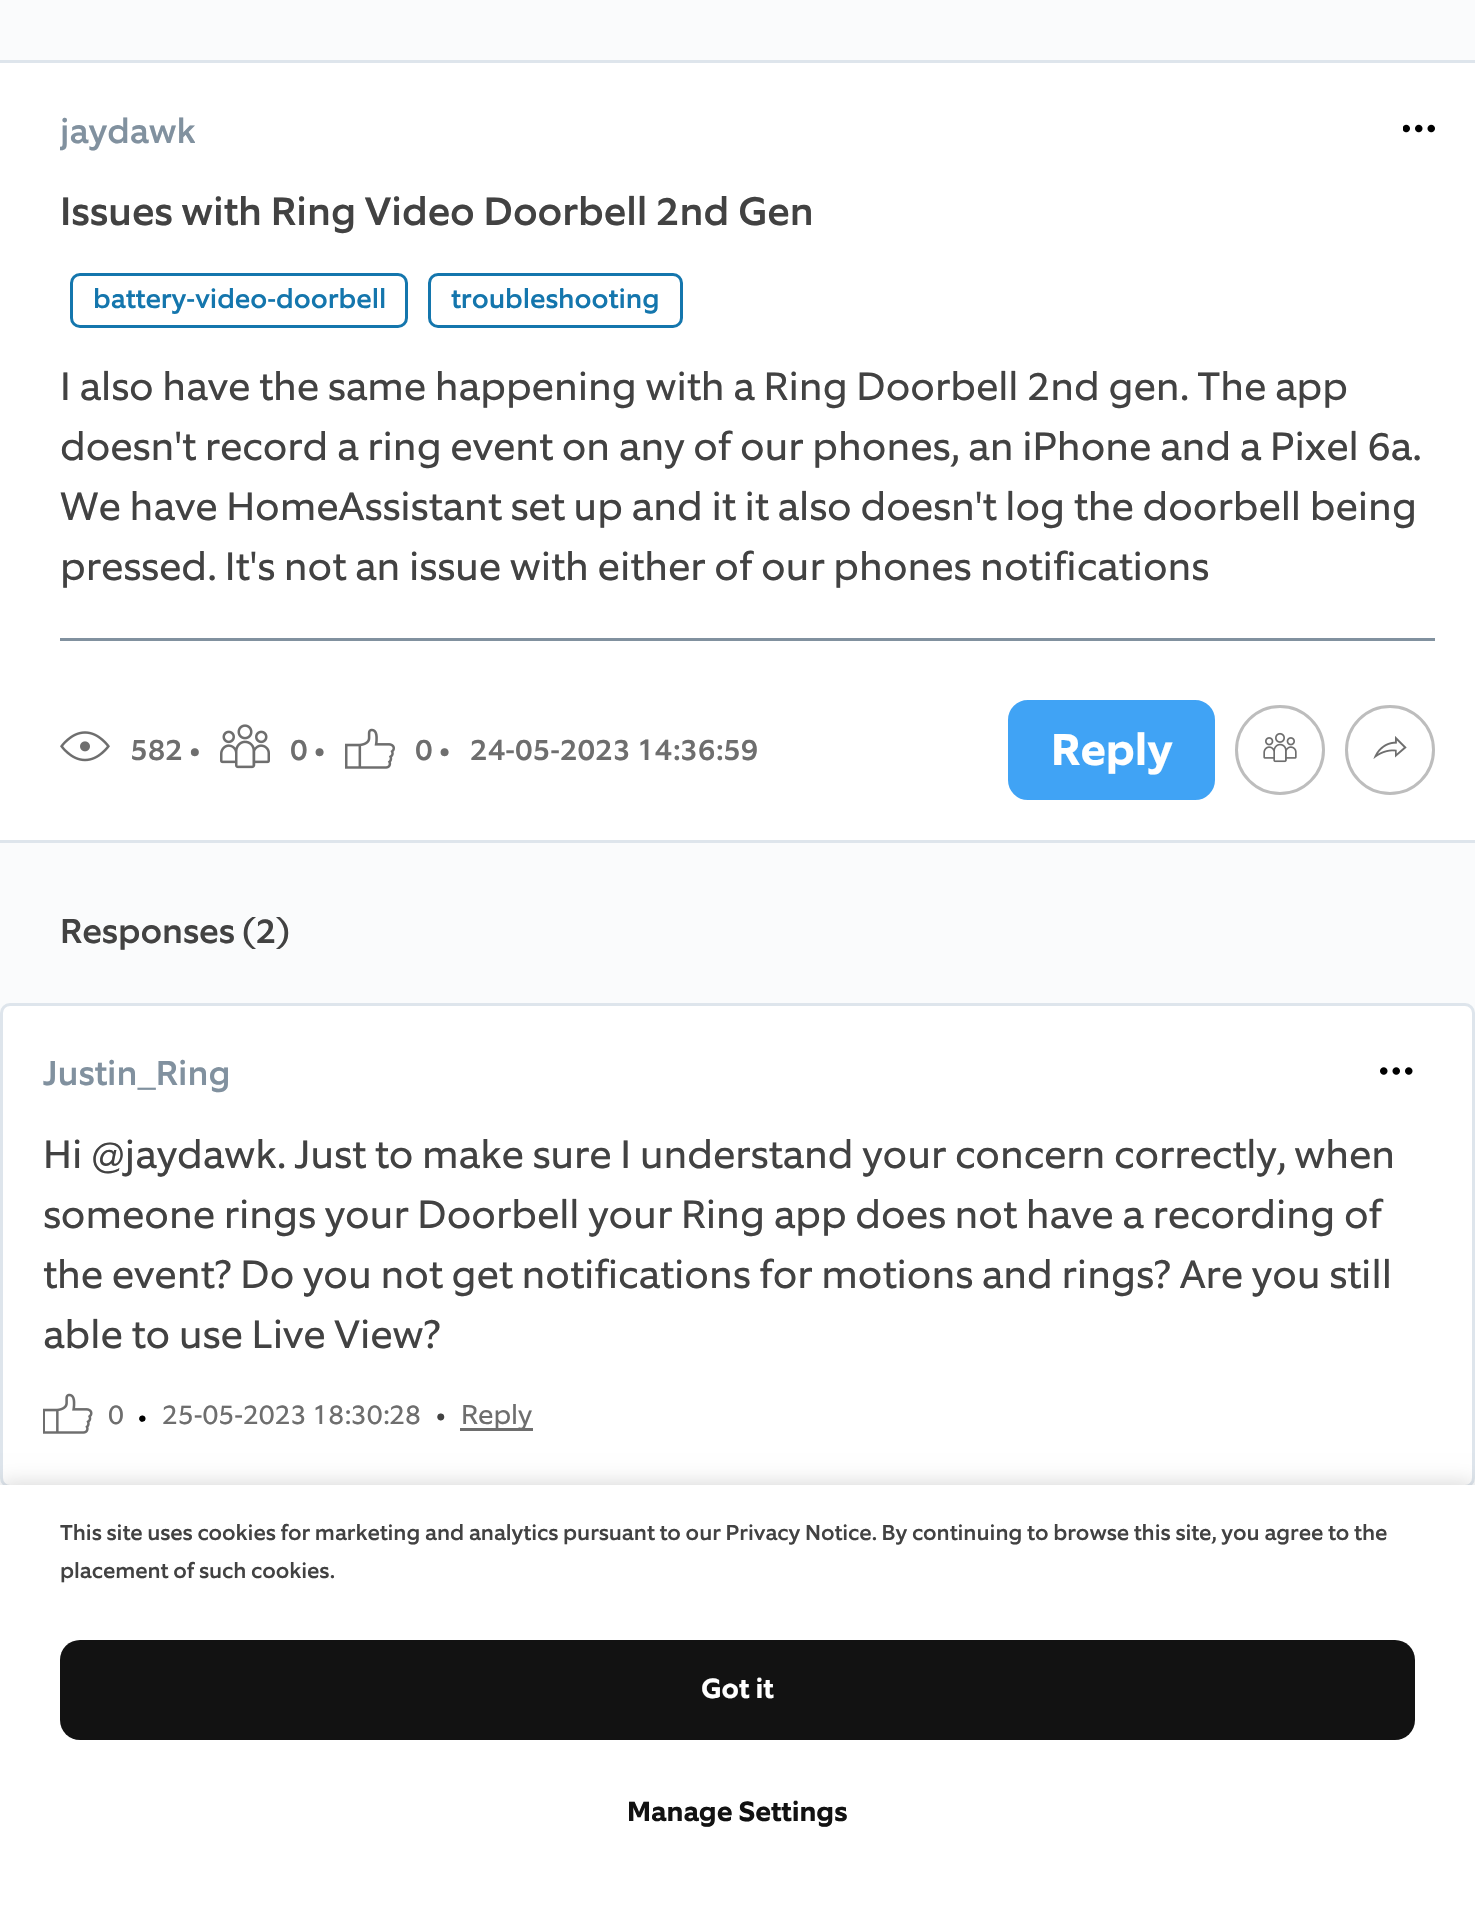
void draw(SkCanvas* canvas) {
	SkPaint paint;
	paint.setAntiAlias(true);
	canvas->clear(0xfffafbfc);
	paint.setColor(0xffffffff);
	canvas->drawRect(SkRect::MakeXYWH(0, 63, 1475, 777), paint);
	paint.setColor(0xffdee5ec);
	canvas->drawRect(SkRect::MakeXYWH(0, 60, 1475, 3), paint);
	canvas->drawRect(SkRect::MakeXYWH(0, 840, 1475, 3), paint);
	canvas->save();
	canvas->clipRect(SkRect::MakeXYWH(60, 103, 135, 60));
	SkFont f1(fontMgr->matchFamilyStyle("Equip", SkFontStyle(500, SkFontStyle::kNormal_Width, SkFontStyle::kUpright_Slant)), 35);
	f1.setSubpixel(true);
	paint.setColor(0xff81919f);
	canvas->drawString("jaydawk", 60, 143, f1, paint);
	canvas->restore();
	canvas->drawImageRect(SkImages::DeferredFromEncodedData(SkData::MakeFromFileName("img1.png")), SkRect::MakeXYWH(1403, 124, 32, 9), SkSamplingOptions());
	SkFont f2(fontMgr->matchFamilyStyle("Equip", SkFontStyle(500, SkFontStyle::kNormal_Width, SkFontStyle::kUpright_Slant)), 40);
	f2.setSubpixel(true);
	paint.setColor(0xff424242);
	canvas->drawString("Issues with Ring Video Doorbell 2nd Gen", 60, 225, f2, paint);
	paint.setStroke(true);
	paint.setStrokeWidth(3);
	paint.setColor(0xff1476ad);
	canvas->drawRoundRect(SkRect::MakeXYWH(71.5, 274.5, 335, 52), 8.5, 8.5, paint);
	SkFont f3(fontMgr->matchFamilyStyle("Equip", SkFontStyle(500, SkFontStyle::kNormal_Width, SkFontStyle::kUpright_Slant)), 27.5);
	f3.setSubpixel(true);
	paint.setStroke(false);
	canvas->drawString("battery-video-doorbell", 93, 308, f3, paint);
	paint.setStroke(true);
	canvas->drawRoundRect(SkRect::MakeXYWH(429.5, 274.5, 252, 52), 8.5, 8.5, paint);
	paint.setStroke(false);
	canvas->drawString("troubleshooting", 451, 308, f3, paint);
	SkFont f4(fontMgr->matchFamilyStyle("Equip", SkFontStyle::Normal()), 40);
	f4.setSubpixel(true);
	paint.setColor(0xff424242);
	canvas->drawString("I also have the same happening with a Ring Doorbell 2nd gen. The app", 60, 400, f4, paint);
	canvas->drawString("doesn't record a ring event on any of our phones, an iPhone and a Pixel 6a.", 60, 460, f4, paint);
	canvas->drawString("We have HomeAssistant set up and it it also doesn't log the doorbell being", 60, 520, f4, paint);
	canvas->drawString("pressed. It's not an issue with either of our phones notifications", 60, 580, f4, paint);
	paint.setColor(0xff81919f);
	canvas->drawRect(SkRect::MakeXYWH(60, 638, 1375, 3), paint);
	canvas->drawImageRect(SkImages::DeferredFromEncodedData(SkData::MakeFromFileName("img2.png")), SkRect::MakeXYWH(60, 731, 50, 31), SkSamplingOptions());
	SkFont f5(fontMgr->matchFamilyStyle("Equip", SkFontStyle(500, SkFontStyle::kNormal_Width, SkFontStyle::kUpright_Slant)), 30);
	f5.setSubpixel(true);
	paint.setColor(0xff6e6e6e);
	canvas->drawString("582 •", 130, 760, f5, paint);
	canvas->drawImageRect(SkImages::DeferredFromEncodedData(SkData::MakeFromFileName("img3.png")), SkRect::MakeXYWH(220, 724, 50, 45), SkSamplingOptions());
	canvas->drawString("0 •", 290, 760, f5, paint);
	canvas->drawImageRect(SkImages::DeferredFromEncodedData(SkData::MakeFromFileName("img4.png")), SkRect::MakeXYWH(345, 728, 50, 41), SkSamplingOptions());
	canvas->drawString("0 •", 415, 760, f5, paint);
	canvas->drawString("24-05-2023 14:36:59", 470, 760, f5, paint);
	paint.setColor(0xff40a3f5);
	canvas->drawRoundRect(SkRect::MakeXYWH(1009.5, 701.5, 204, 97), 18.5, 18.5, paint);
	paint.setStroke(true);
	canvas->drawRoundRect(SkRect::MakeXYWH(1009.5, 701.5, 204, 97), 18.5, 18.5, paint);
	SkFont f6(fontMgr->matchFamilyStyle("Equip", SkFontStyle::Bold()), 45);
	f6.setSubpixel(true);
	paint.setStroke(false);
	paint.setColor(0xffffffff);
	canvas->drawString("Reply", 1051, 765, f6, paint);
	paint.setStroke(true);
	paint.setColor(0xffbdbdbd);
	canvas->drawCircle(1280, 750, 43.5, paint);
	canvas->drawImageRect(SkImages::DeferredFromEncodedData(SkData::MakeFromFileName("img5.png")), SkRect::MakeXYWH(1263, 732, 34, 31), SkSamplingOptions());
	canvas->drawCircle(1390, 750, 43.5, paint);
	canvas->drawImageRect(SkImages::DeferredFromEncodedData(SkData::MakeFromFileName("img6.png")), SkRect::MakeXYWH(1373, 736, 34, 23), SkSamplingOptions());
	paint.setStroke(false);
	paint.setColor(0xff424242);
	canvas->drawString("Responses (2)", 60, 943, f1, paint);
	paint.setColor(0xffffffff);
	canvas->drawRoundRect(SkRect::MakeXYWH(1.5, 1004.5, 1472, 482), 8.5, 8.5, paint);
	paint.setStroke(true);
	paint.setColor(0xffdee5ec);
	canvas->drawRoundRect(SkRect::MakeXYWH(1.5, 1004.5, 1472, 482), 8.5, 8.5, paint);
	paint.setStroke(false);
	paint.setColor(0xff81919f);
	canvas->drawString("Justin_Ring", 43, 1085, f1, paint);
	canvas->drawImageRect(SkImages::DeferredFromEncodedData(SkData::MakeFromFileName("img7.png")), SkRect::MakeXYWH(1380, 1067, 33, 8), SkSamplingOptions());
	paint.setColor(0xff424242);
	canvas->drawString("Hi @jaydawk. Just to make sure I understand your concern correctly, when", 43, 1168, f4, paint);
	canvas->drawString("someone rings your Doorbell your Ring app does not have a recording of", 43, 1228, f4, paint);
	canvas->drawString("the event? Do you not get notifications for motions and rings? Are you still", 43, 1288, f4, paint);
	canvas->drawString("able to use Live View?", 43, 1348, f4, paint);
	canvas->drawImageRect(SkImages::DeferredFromEncodedData(SkData::MakeFromFileName("img8.png")), SkRect::MakeXYWH(43, 1393, 50, 41), SkSamplingOptions());
	SkFont f7(fontMgr->matchFamilyStyle("Equip", SkFontStyle::Normal()), 27.5);
	f7.setSubpixel(true);
	paint.setColor(0xff6e6e6e);
	canvas->drawString("0", 108, 1424, f7, paint);
	SkFont f8(fontMgr->matchFamilyStyle("Equip", SkFontStyle::Normal()), 25);
	f8.setSubpixel(true);
	paint.setColor(0xff000000);
	canvas->drawString("•", 138, 1425, f8, paint);
	paint.setColor(0xff6e6e6e);
	canvas->drawString("25-05-2023 18:30:28", 162, 1424, f7, paint);
	paint.setColor(0xff424242);
	canvas->drawString("•", 436, 1424, f7, paint);
	paint.setColor(0xff6e6e6e);
	canvas->drawRect(SkRect::MakeXYWH(460, 1428, 73, 3), paint);
	canvas->drawString("Reply", 461, 1424, f7, paint);
	paint.setColor(0x26000000);
	paint.setMaskFilter(SkMaskFilter::MakeBlur(kNormal_SkBlurStyle, 10));
	canvas->drawRect(SkRect::MakeXYWH(0, 1483, 1475, 432), paint);
	paint.setMaskFilter(nullptr);
	paint.setColor(0xffffffff);
	canvas->drawRect(SkRect::MakeXYWH(0, 1485, 1475, 431), paint);
	SkFont f9(fontMgr->matchFamilyStyle("Equip", SkFontStyle(500, SkFontStyle::kNormal_Width, SkFontStyle::kUpright_Slant)), 21.88);
	f9.setSubpixel(true);
	paint.setColor(0xff424242);
	canvas->drawString("This site uses cookies for marketing and analytics pursuant to our Privacy Notice. By continuing to browse this site, you agree to the", 60, 1540, f9, paint);
	canvas->drawString("placement of such cookies.", 60, 1578, f9, paint);
	paint.setColor(0xff121212);
	canvas->drawRoundRect(SkRect::MakeXYWH(60, 1640, 1355, 100), 20, 20, paint);
	SkFont f10(fontMgr->matchFamilyStyle("Equip", SkFontStyle::Bold()), 28);
	f10.setSubpixel(true);
	paint.setColor(0xffffffff);
	canvas->drawString("Got it", 701, 1698, f10, paint);
	paint.setColor(0xff121212);
	canvas->drawString("Manage Settings", 627, 1821, f10, paint);
}
